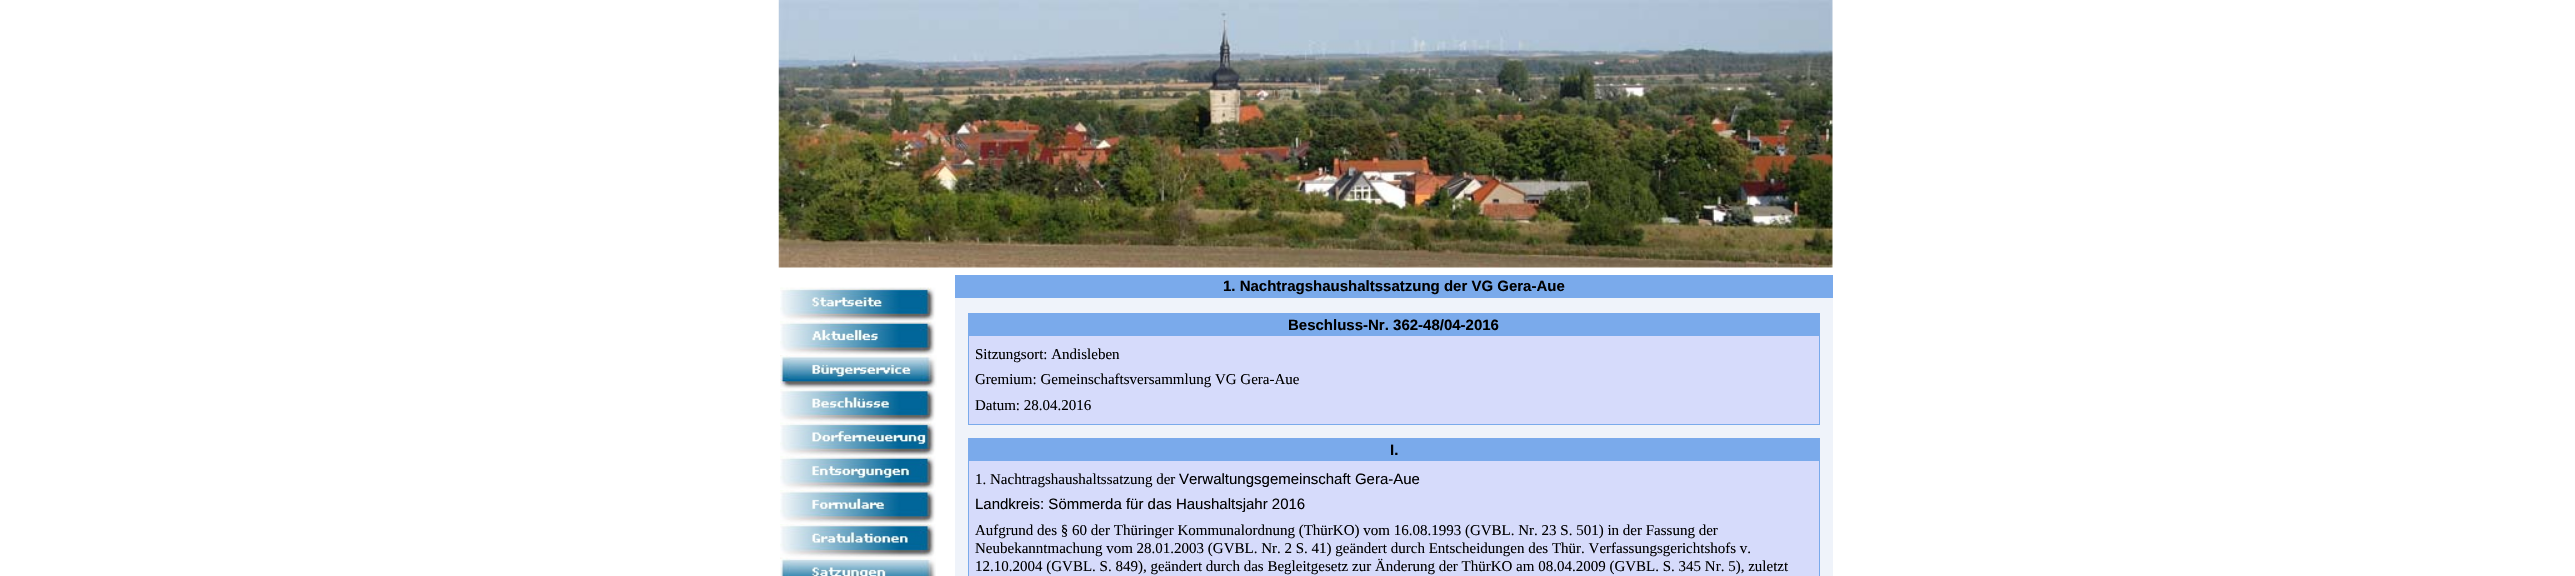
void draw(SkCanvas* canvas) {
	SkPaint paint;
	paint.setAntiAlias(true);
	canvas->clear(0xffffffff);
	canvas->drawImageRect(SkImages::DeferredFromEncodedData(SkData::MakeFromFileName("img1.png")), SkRect::MakeXYWH(778, 0, 1055, 268), SkSamplingOptions());
	canvas->drawImageRect(SkImages::DeferredFromEncodedData(SkData::MakeFromFileName("img2.png")), SkRect::MakeXYWH(780, 287, 156, 34), SkSamplingOptions());
	canvas->drawImageRect(SkImages::DeferredFromEncodedData(SkData::MakeFromFileName("img3.png")), SkRect::MakeXYWH(780, 321, 156, 34), SkSamplingOptions());
	canvas->drawImageRect(SkImages::DeferredFromEncodedData(SkData::MakeFromFileName("img4.png")), SkRect::MakeXYWH(780, 355, 157, 34), SkSamplingOptions());
	canvas->drawImageRect(SkImages::DeferredFromEncodedData(SkData::MakeFromFileName("img5.png")), SkRect::MakeXYWH(780, 389, 156, 34), SkSamplingOptions());
	canvas->drawImageRect(SkImages::DeferredFromEncodedData(SkData::MakeFromFileName("img6.png")), SkRect::MakeXYWH(780, 422, 156, 34), SkSamplingOptions());
	canvas->drawImageRect(SkImages::DeferredFromEncodedData(SkData::MakeFromFileName("img7.png")), SkRect::MakeXYWH(780, 456, 156, 34), SkSamplingOptions());
	canvas->drawImageRect(SkImages::DeferredFromEncodedData(SkData::MakeFromFileName("img8.png")), SkRect::MakeXYWH(780, 490, 156, 34), SkSamplingOptions());
	canvas->drawImageRect(SkImages::DeferredFromEncodedData(SkData::MakeFromFileName("img9.png")), SkRect::MakeXYWH(780, 524, 156, 34), SkSamplingOptions());
	canvas->drawImageRect(SkImages::DeferredFromEncodedData(SkData::MakeFromFileName("img10.png")), SkRect::MakeXYWH(780, 557, 156, 19), SkSamplingOptions());
	paint.setColor(0xffeff3fa);
	canvas->drawRect(SkRect::MakeXYWH(955, 298, 878, 278), paint);
	paint.setColor(0xff7aaaeb);
	canvas->drawRect(SkRect::MakeXYWH(955, 275, 878, 23), paint);
	SkFont f1(fontMgr->matchFamilyStyle("Liberation Sans", SkFontStyle::Bold()), 15);
	f1.setSubpixel(true);
	paint.setColor(0xff000000);
	canvas->drawString("1. Nachtragshaushaltssatzung der VG Gera-Aue", 1223, 291, f1, paint);
	paint.setColor(0xffd6dbfb);
	canvas->drawRect(SkRect::MakeXYWH(969, 336, 850, 88), paint);
	paint.setStroke(true);
	paint.setStrokeWidth(1);
	paint.setColor(0xff7aaaeb);
	canvas->drawRect(SkRect::MakeXYWH(968.5, 313.5, 851, 111), paint);
	paint.setStroke(false);
	canvas->drawRect(SkRect::MakeXYWH(969, 314, 850, 22), paint);
	paint.setColor(0xff000000);
	canvas->drawString("Beschluss-Nr. 362-48/04-2016", 1288, 330, f1, paint);
	SkFont f2(fontMgr->matchFamilyStyle("Liberation Serif", SkFontStyle::Normal()), 15);
	f2.setSubpixel(true);
	canvas->drawString("Sitzungsort: Andisleben", 975, 359, f2, paint);
	canvas->drawString("Gremium: Gemeinschaftsversammlung VG Gera-Aue", 975, 384, f2, paint);
	canvas->drawString("Datum: 28.04.2016", 975, 410, f2, paint);
	paint.setColor(0xffd6dbfb);
	canvas->drawRect(SkRect::MakeXYWH(969, 461, 850, 115), paint);
	paint.setStroke(true);
	paint.setColor(0xff7aaaeb);
	canvas->drawRect(SkRect::MakeXYWH(968.5, 438.5, 851, 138), paint);
	paint.setStroke(false);
	canvas->drawRect(SkRect::MakeXYWH(969, 439, 850, 22), paint);
	paint.setColor(0xff000000);
	canvas->drawString("I.", 1390, 455, f1, paint);
	canvas->drawString("1. Nachtragshaushaltssatzung der", 975, 484, f2, paint);
	SkFont f3(fontMgr->matchFamilyStyle("Liberation Sans", SkFontStyle::Normal()), 15);
	f3.setSubpixel(true);
	canvas->drawString("Verwaltungsgemeinschaft Gera-Aue", 1179, 484, f3, paint);
	canvas->drawString("Landkreis: Sömmerda für das Haushaltsjahr 2016", 975, 509, f3, paint);
	canvas->drawString("Aufgrund des § 60 der Thüringer Kommunalordnung (ThürKO) vom 16.08.1993 (GVBL. Nr. 23 S. 501) in der Fassung der", 975, 535, f2, paint);
	canvas->drawString("Neubekanntmachung vom 28.01.2003 (GVBL. Nr. 2 S. 41) geändert durch Entscheidungen des Thür. Verfassungsgerichtshofs v.", 975, 553, f2, paint);
	canvas->drawString("12.10.2004 (GVBL. S. 849), geändert durch das Begleitgesetz zur Änderung der ThürKO am 08.04.2009 (GVBL. S. 345 Nr. 5), zuletzt", 975, 571, f2, paint);
}
